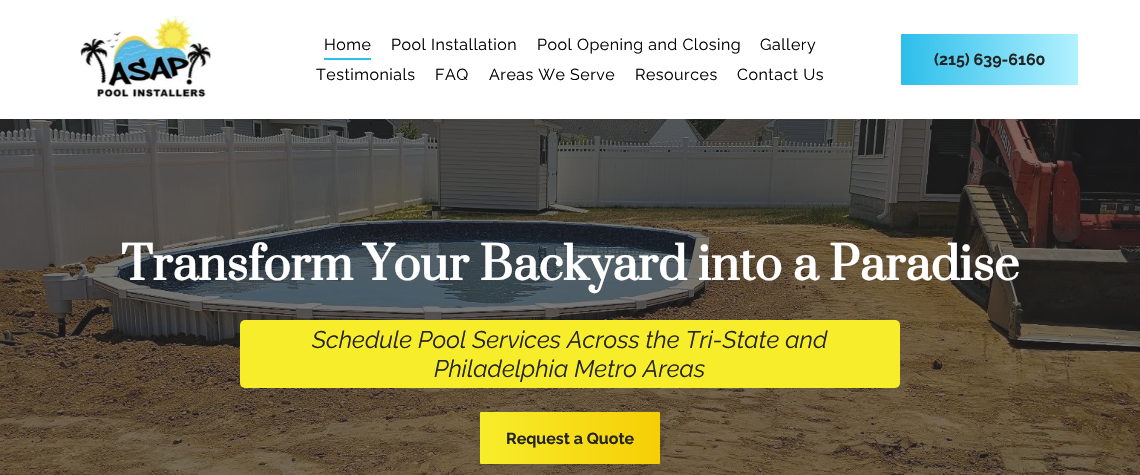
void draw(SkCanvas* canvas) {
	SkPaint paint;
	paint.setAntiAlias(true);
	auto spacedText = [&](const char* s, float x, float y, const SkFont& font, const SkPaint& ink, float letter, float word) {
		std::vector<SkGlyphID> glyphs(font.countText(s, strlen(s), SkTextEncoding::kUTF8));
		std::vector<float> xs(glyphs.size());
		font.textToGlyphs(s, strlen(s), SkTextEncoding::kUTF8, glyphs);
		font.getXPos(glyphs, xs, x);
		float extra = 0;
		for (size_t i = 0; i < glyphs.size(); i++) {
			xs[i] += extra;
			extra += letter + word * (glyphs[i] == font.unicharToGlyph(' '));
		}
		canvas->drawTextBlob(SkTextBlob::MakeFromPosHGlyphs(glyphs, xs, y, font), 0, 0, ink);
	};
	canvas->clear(0xffffffff);
	canvas->drawImageRect(SkImages::DeferredFromEncodedData(SkData::MakeFromFileName("img1.png")), SkRect::MakeXYWH(80, 16, 131, 83), SkSamplingOptions());
	SkFont f1(fontMgr->matchFamilyStyle("Raleway", SkFontStyle::Normal()), 16);
	f1.setSubpixel(true);
	paint.setColor(0xff000000);
	spacedText("Home", 324, 50, f1, paint, 0.5, 0);
	paint.setColor(0xff2bbeea);
	canvas->drawRect(SkRect::MakeXYWH(324, 58, 47, 2), paint);
	paint.setColor(0xff000000);
	spacedText("Pool Installation", 391, 50, f1, paint, 0.5, 0);
	spacedText("Pool Opening and Closing", 537, 50, f1, paint, 0.5, 0);
	spacedText("Gallery", 760, 50, f1, paint, 0.5, 0);
	spacedText("Testimonials", 316, 80, f1, paint, 0.5, 0);
	spacedText("FAQ", 435, 80, f1, paint, 0.5, 0);
	spacedText("Areas We Serve", 489, 80, f1, paint, 0.5, 0);
	spacedText("Resources", 635, 80, f1, paint, 0.5, 0);
	spacedText("Contact Us", 737, 80, f1, paint, 0.5, 0);
	{
		const SkColor colors[] = {0xff2bbeea, 0xffb2f1ff};
		const float stops[] = {0, 1};
		const SkPoint ends[] = {{901, 60}, {1078, 59}};
		paint.setShader(SkGradientShader::MakeLinear(ends, colors, stops, 2, SkTileMode::kClamp));
		paint.setAlpha(255);
	}
	canvas->drawRoundRect(SkRect::MakeXYWH(901, 34, 177, 51), 1, 1, paint);
	SkFont f2(fontMgr->matchFamilyStyle("Raleway", SkFontStyle::Bold()), 16);
	f2.setSubpixel(true);
	paint.setShader(nullptr);
	paint.setColor(0xff242424);
	canvas->drawString("(215) 639-6160", 934, 65, f2, paint);
	canvas->drawImageRect(SkImages::DeferredFromEncodedData(SkData::MakeFromFileName("img2.png")), SkRect::MakeXYWH(0, 119, 1140, 356), SkSamplingOptions());
	SkFont f3(fontMgr->matchFamilyStyle("Prata", SkFontStyle::Bold()), 45);
	f3.setSubpixel(true);
	paint.setColor(0xffffffff);
	canvas->drawString("Transform Your Backyard into a Paradise", 121, 280, f3, paint);
	paint.setColor(0xfff7ed2b);
	canvas->drawRoundRect(SkRect::MakeXYWH(240, 320, 660, 68), 5, 5, paint);
	SkFont f4(fontMgr->matchFamilyStyle("Raleway", SkFontStyle::Italic()), 24);
	f4.setSubpixel(true);
	paint.setColor(0xff242424);
	canvas->drawString("Schedule Pool Services Across the Tri-State and", 312, 348, f4, paint);
	canvas->drawString("Philadelphia Metro Areas", 434, 377, f4, paint);
	{
		const SkColor colors[] = {0xfff7ed2b, 0xfff6ce06};
		const float stops[] = {0, 1};
		const SkPoint ends[] = {{480, 438}, {660, 438}};
		paint.setShader(SkGradientShader::MakeLinear(ends, colors, stops, 2, SkTileMode::kClamp));
		paint.setAlpha(255);
	}
	canvas->drawRoundRect(SkRect::MakeXYWH(480, 412, 180, 52), 1, 1, paint);
	paint.setShader(nullptr);
	paint.setColor(0xff242424);
	canvas->drawString("Request a Quote", 506, 444, f2, paint);
}
